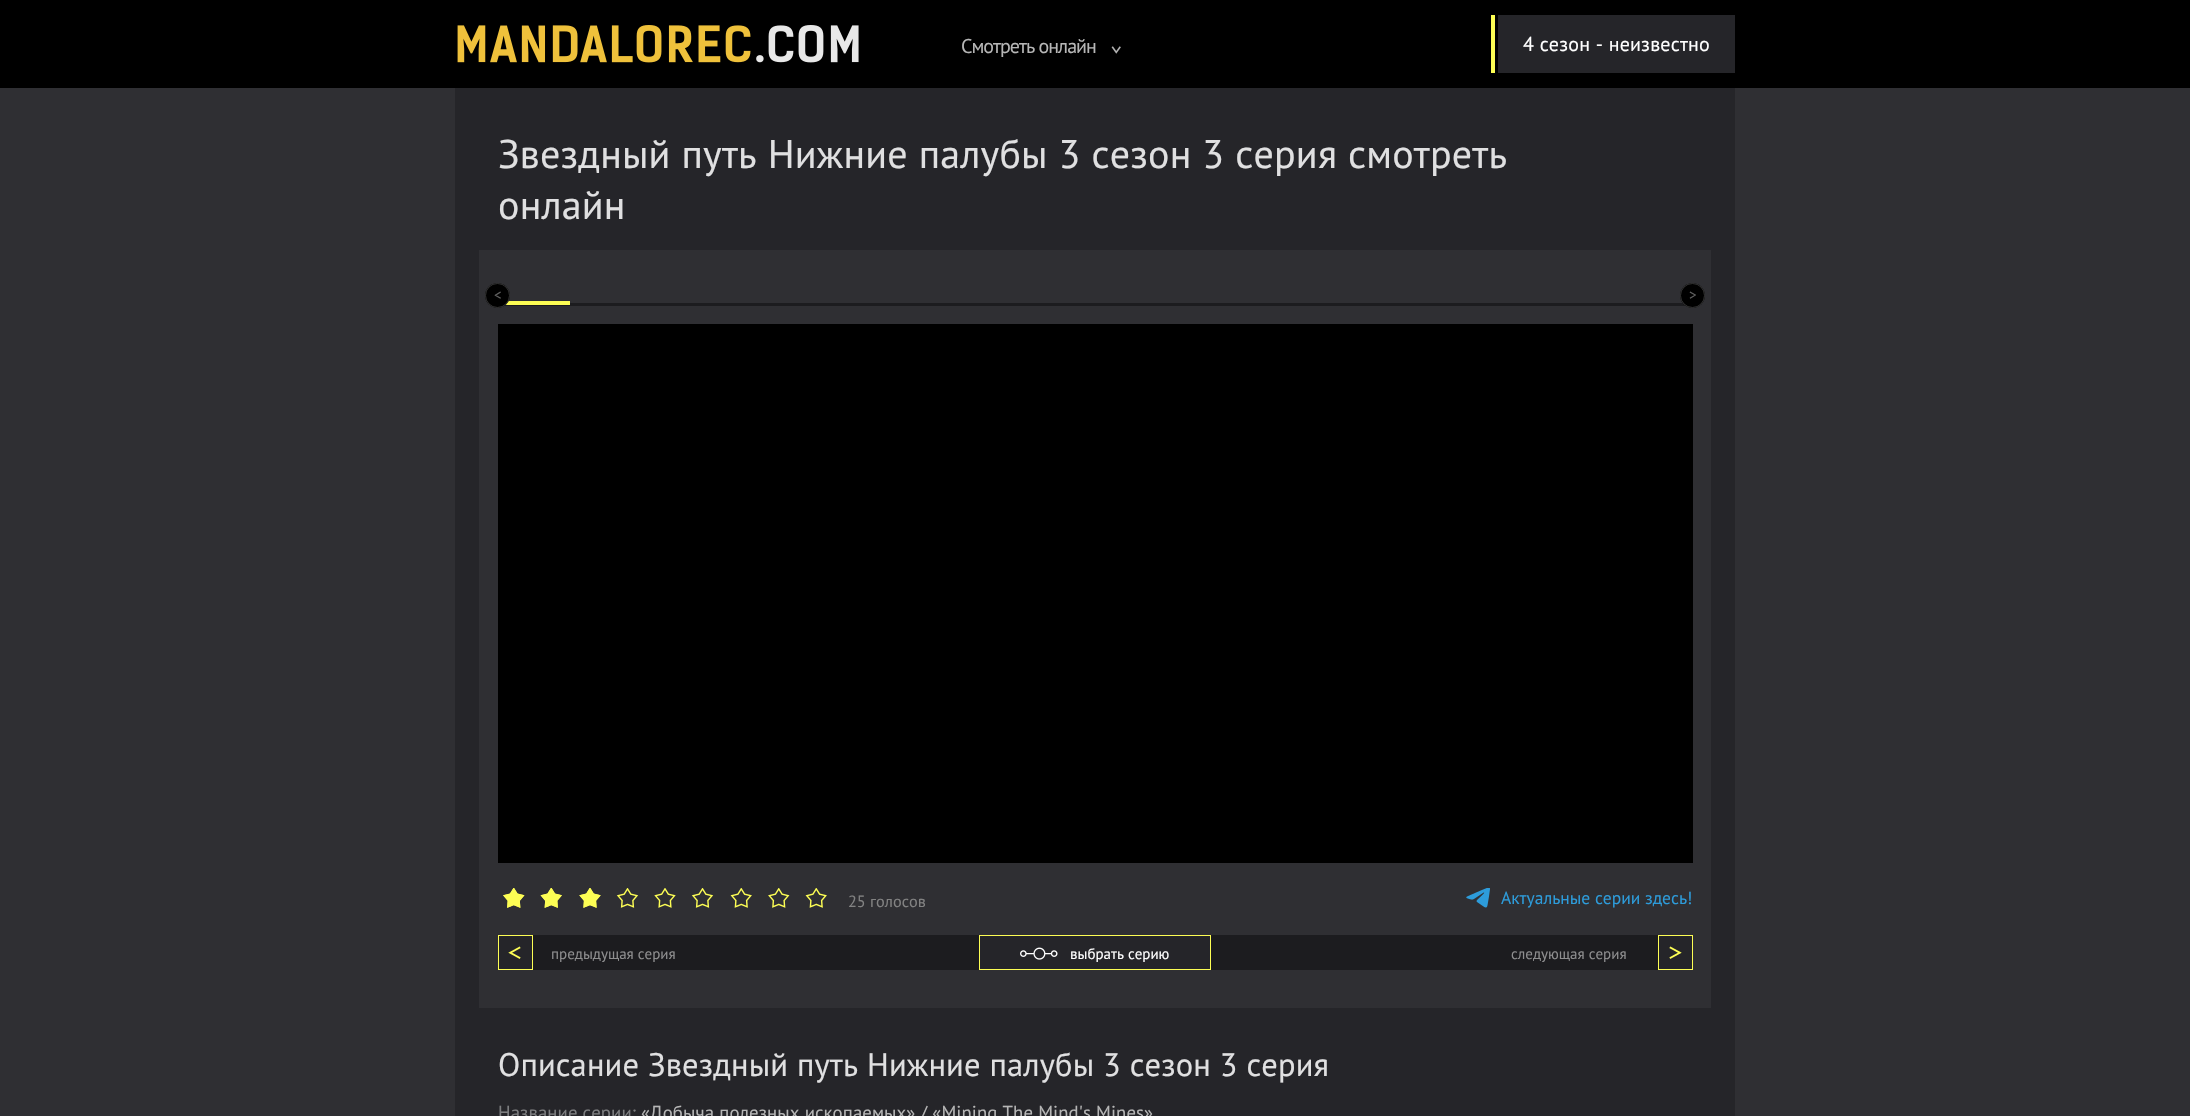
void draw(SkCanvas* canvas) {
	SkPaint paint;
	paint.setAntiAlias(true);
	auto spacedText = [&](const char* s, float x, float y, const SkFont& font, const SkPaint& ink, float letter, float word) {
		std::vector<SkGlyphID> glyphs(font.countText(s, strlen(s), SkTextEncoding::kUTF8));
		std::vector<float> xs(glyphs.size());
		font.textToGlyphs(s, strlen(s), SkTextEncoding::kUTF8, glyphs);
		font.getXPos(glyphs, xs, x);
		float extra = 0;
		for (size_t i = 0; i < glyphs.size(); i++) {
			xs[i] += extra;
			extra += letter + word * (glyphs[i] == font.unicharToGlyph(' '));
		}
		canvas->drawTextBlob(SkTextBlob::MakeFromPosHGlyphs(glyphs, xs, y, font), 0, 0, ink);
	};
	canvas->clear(0xff2f2f33);
	paint.setColor(0xff000000);
	canvas->drawRect(SkRect::MakeXYWH(0, 0, 2190, 88), paint);
	canvas->drawImageRect(SkImages::DeferredFromEncodedData(SkData::MakeFromFileName("img1.png")), SkRect::MakeXYWH(457, 25, 402, 38), SkSamplingOptions());
	SkFont f1(fontMgr->matchFamilyStyle("PT Sans", SkFontStyle::Normal()), 20);
	f1.setSubpixel(true);
	paint.setColor(0xffb6b6b6);
	spacedText("Смотреть онлайн", 961, 53, f1, paint, -1, 0);
	canvas->drawImageRect(SkImages::DeferredFromEncodedData(SkData::MakeFromFileName("img2.png")), SkRect::MakeXYWH(1111, 46, 10, 8), SkSamplingOptions());
	paint.setColor(0xfffdfe54);
	canvas->drawRect(SkRect::MakeXYWH(1491, 15, 4, 58), paint);
	paint.setColor(0xff252529);
	canvas->drawRect(SkRect::MakeXYWH(1498, 15, 237, 58), paint);
	paint.setColor(0xffffffff);
	spacedText("4 сезон - неизвестно", 1523, 51, f1, paint, 0.2, 0);
	paint.setColor(0xff252529);
	canvas->drawRect(SkRect::MakeXYWH(455, 88, 1280, 1028), paint);
	SkFont f2(fontMgr->matchFamilyStyle("PT Sans", SkFontStyle::Normal()), 40);
	f2.setSubpixel(true);
	paint.setColor(0xffe0e0e1);
	spacedText("Звездный путь Нижние палубы 3 сезон 3 серия смотреть", 498, 168, f2, paint, 0.2, 0);
	spacedText("онлайн", 498, 219, f2, paint, 0.2, 0);
	paint.setColor(0xff2f2f33);
	canvas->drawRect(SkRect::MakeXYWH(479, 250, 1232, 758), paint);
	paint.setColor(0xff1c1c1f);
	canvas->drawRect(SkRect::MakeXYWH(498, 303, 1195, 3), paint);
	paint.setColor(0xfffdfe54);
	canvas->drawRect(SkRect::MakeXYWH(498, 301, 72, 4), paint);
	paint.setColor(0xff000000);
	canvas->drawCircle(497.5, 295.5, 12.5, paint);
	paint.setStroke(true);
	paint.setStrokeWidth(1);
	paint.setColor(0xcc3e3e3e);
	canvas->drawCircle(497.5, 295.5, 12, paint);
	SkFont f3(fontMgr->matchFamilyStyle("PT Sans", SkFontStyle::Normal()), 15);
	f3.setSubpixel(true);
	paint.setStroke(false);
	paint.setColor(0xff5f5f5f);
	canvas->drawString("<", 494, 300, f3, paint);
	paint.setColor(0xff000000);
	canvas->drawCircle(1692.5, 295.5, 12.5, paint);
	paint.setStroke(true);
	paint.setColor(0xcc3e3e3e);
	canvas->drawCircle(1692.5, 295.5, 12, paint);
	paint.setStroke(false);
	paint.setColor(0xff5f5f5f);
	canvas->drawString(">", 1689, 300, f3, paint);
	paint.setColor(0xff000000);
	canvas->drawRect(SkRect::MakeXYWH(498, 324, 1195, 539), paint);
	canvas->drawImageRect(SkImages::DeferredFromEncodedData(SkData::MakeFromFileName("img3.png")), SkRect::MakeXYWH(503, 888, 22, 20), SkSamplingOptions());
	canvas->drawImageRect(SkImages::DeferredFromEncodedData(SkData::MakeFromFileName("img4.png")), SkRect::MakeXYWH(540, 888, 22, 20), SkSamplingOptions());
	canvas->drawImageRect(SkImages::DeferredFromEncodedData(SkData::MakeFromFileName("img5.png")), SkRect::MakeXYWH(579, 888, 22, 20), SkSamplingOptions());
	canvas->drawImageRect(SkImages::DeferredFromEncodedData(SkData::MakeFromFileName("img6.png")), SkRect::MakeXYWH(616, 888, 23, 20), SkSamplingOptions());
	canvas->drawImageRect(SkImages::DeferredFromEncodedData(SkData::MakeFromFileName("img7.png")), SkRect::MakeXYWH(654, 888, 22, 20), SkSamplingOptions());
	canvas->drawImageRect(SkImages::DeferredFromEncodedData(SkData::MakeFromFileName("img6.png")), SkRect::MakeXYWH(691, 888, 23, 20), SkSamplingOptions());
	canvas->drawImageRect(SkImages::DeferredFromEncodedData(SkData::MakeFromFileName("img8.png")), SkRect::MakeXYWH(730, 888, 22, 20), SkSamplingOptions());
	canvas->drawImageRect(SkImages::DeferredFromEncodedData(SkData::MakeFromFileName("img9.png")), SkRect::MakeXYWH(768, 888, 22, 20), SkSamplingOptions());
	canvas->drawImageRect(SkImages::DeferredFromEncodedData(SkData::MakeFromFileName("img8.png")), SkRect::MakeXYWH(805, 888, 22, 20), SkSamplingOptions());
	SkFont f4(fontMgr->matchFamilyStyle("PT Sans", SkFontStyle::Normal()), 16.25);
	f4.setSubpixel(true);
	paint.setColor(0xff828282);
	canvas->drawString("25 голосов", 848, 907, f4, paint);
	canvas->drawImageRect(SkImages::DeferredFromEncodedData(SkData::MakeFromFileName("img10.png")), SkRect::MakeXYWH(1466, 888, 24, 20), SkSamplingOptions());
	SkFont f5(fontMgr->matchFamilyStyle("PT Sans", SkFontStyle::Normal()), 17.5);
	f5.setSubpixel(true);
	paint.setColor(0xff2d9cdb);
	canvas->drawString("Актуальные серии здесь!", 1501, 904, f5, paint);
	paint.setColor(0xff1c1c1f);
	canvas->drawRect(SkRect::MakeXYWH(533, 935, 1125, 35), paint);
	paint.setColor(0xff252529);
	canvas->drawRect(SkRect::MakeXYWH(498.5, 935.5, 34, 34), paint);
	paint.setStroke(true);
	paint.setColor(0xfffdfe54);
	canvas->drawRect(SkRect::MakeXYWH(498.5, 935.5, 34, 34), paint);
	canvas->drawImageRect(SkImages::DeferredFromEncodedData(SkData::MakeFromFileName("img11.png")), SkRect::MakeXYWH(508, 946, 13, 13), SkSamplingOptions());
	paint.setStroke(false);
	paint.setColor(0xff8e8e8f);
	canvas->drawString("предыдущая серия", 551, 959, f3, paint);
	paint.setColor(0xff252529);
	canvas->drawRect(SkRect::MakeXYWH(979.5, 935.5, 231, 34), paint);
	paint.setStroke(true);
	paint.setColor(0xfffdfe54);
	canvas->drawRect(SkRect::MakeXYWH(979.5, 935.5, 231, 34), paint);
	canvas->drawImageRect(SkImages::DeferredFromEncodedData(SkData::MakeFromFileName("img12.png")), SkRect::MakeXYWH(1020, 947, 38, 13), SkSamplingOptions());
	paint.setStroke(false);
	paint.setColor(0xffffffff);
	canvas->drawString("выбрать серию", 1070, 959, f3, paint);
	paint.setColor(0xff8e8e8f);
	canvas->drawString("следующая серия", 1511, 959, f3, paint);
	paint.setColor(0xff252529);
	canvas->drawRect(SkRect::MakeXYWH(1658.5, 935.5, 34, 34), paint);
	paint.setStroke(true);
	paint.setColor(0xfffdfe54);
	canvas->drawRect(SkRect::MakeXYWH(1658.5, 935.5, 34, 34), paint);
	canvas->drawImageRect(SkImages::DeferredFromEncodedData(SkData::MakeFromFileName("img13.png")), SkRect::MakeXYWH(1669, 946, 13, 13), SkSamplingOptions());
	SkFont f6(fontMgr->matchFamilyStyle("PT Sans", SkFontStyle::Normal()), 32.5);
	f6.setSubpixel(true);
	paint.setStroke(false);
	paint.setColor(0xffe0e0e1);
	spacedText("Описание Звездный путь Нижние палубы 3 сезон 3 серия", 498, 1076, f6, paint, 0.15, 0);
	SkFont f7(fontMgr->matchFamilyStyle("PT Sans", SkFontStyle::Normal()), 18.75);
	f7.setSubpixel(true);
	paint.setColor(0xff7c7d7f);
	spacedText("Название серии:", 498, 1119, f7, paint, 0.1, 0);
	paint.setColor(0xffb6b6b6);
	spacedText("«Добыча полезных ископаемых» / «Mining The Mind's Mines»", 641, 1119, f7, paint, 0.1, 0);
}
